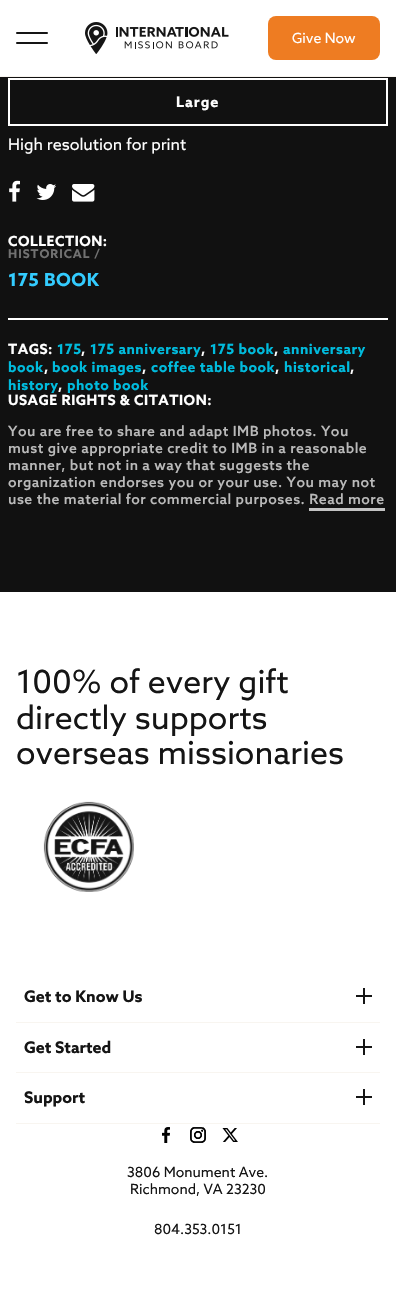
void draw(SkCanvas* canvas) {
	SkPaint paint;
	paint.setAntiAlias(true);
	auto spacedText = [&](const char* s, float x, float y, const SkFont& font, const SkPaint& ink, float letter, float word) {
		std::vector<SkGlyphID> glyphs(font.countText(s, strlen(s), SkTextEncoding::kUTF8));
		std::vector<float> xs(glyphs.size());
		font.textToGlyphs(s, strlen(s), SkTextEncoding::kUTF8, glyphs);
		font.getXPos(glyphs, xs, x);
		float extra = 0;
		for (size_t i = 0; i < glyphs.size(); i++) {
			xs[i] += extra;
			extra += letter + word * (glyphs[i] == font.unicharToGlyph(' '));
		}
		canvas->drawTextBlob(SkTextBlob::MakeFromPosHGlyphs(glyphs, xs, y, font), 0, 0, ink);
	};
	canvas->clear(0xffffffff);
	paint.setColor(0xfff8f5f0);
	canvas->drawRect(SkRect::MakeXYWH(0, 76, 396, 1), paint);
	paint.setColor(0xff151515);
	canvas->drawRoundRect(SkRect::MakeXYWH(16, 32, 32, 2), 1, 1, paint);
	canvas->drawRoundRect(SkRect::MakeXYWH(16, 42, 32, 2), 1, 1, paint);
	canvas->drawImageRect(SkImages::DeferredFromEncodedData(SkData::MakeFromFileName("img1.png")), SkRect::MakeXYWH(85, 22, 144, 32), SkSamplingOptions());
	paint.setColor(0xffee7c22);
	canvas->drawRoundRect(SkRect::MakeXYWH(268, 16, 112, 44), 8, 8, paint);
	SkFont f1(fontMgr->matchFamilyStyle("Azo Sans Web", SkFontStyle::Normal()), 14);
	f1.setSubpixel(true);
	paint.setColor(0xffffffff);
	canvas->drawString("Give Now", 292, 43, f1, paint);
	paint.setColor(0xff111111);
	canvas->drawRect(SkRect::MakeXYWH(0, 77, 396, 515), paint);
	paint.setStroke(true);
	paint.setStrokeWidth(2);
	paint.setColor(0xffffffff);
	canvas->drawRect(SkRect::MakeXYWH(9, 79, 378, 46), paint);
	SkFont f2(fontMgr->matchFamilyStyle("Azo Sans Web", SkFontStyle::Bold()), 14.5);
	f2.setSubpixel(true);
	paint.setStroke(false);
	spacedText("Large", 176, 107, f2, paint, 1, 0);
	SkFont f3(fontMgr->matchFamilyStyle("Azo Sans Web", SkFontStyle::Normal()), 16);
	f3.setSubpixel(true);
	canvas->drawString("High resolution for print", 8, 150, f3, paint);
	canvas->drawImageRect(SkImages::DeferredFromEncodedData(SkData::MakeFromFileName("img2.png")), SkRect::MakeXYWH(9, 180, 11, 22), SkSamplingOptions());
	canvas->drawImageRect(SkImages::DeferredFromEncodedData(SkData::MakeFromFileName("img3.png")), SkRect::MakeXYWH(36, 184, 20, 16), SkSamplingOptions());
	canvas->drawImageRect(SkImages::DeferredFromEncodedData(SkData::MakeFromFileName("img4.png")), SkRect::MakeXYWH(72, 184, 23, 18), SkSamplingOptions());
	canvas->drawRect(SkRect::MakeXYWH(8, 318, 380, 2), paint);
	SkFont f4(fontMgr->matchFamilyStyle("Azo Sans Web", SkFontStyle::Bold()), 14);
	f4.setSubpixel(true);
	spacedText("COLLECTION:", 8, 246, f4, paint, 0.5, 0);
	SkFont f5(fontMgr->matchFamilyStyle("Azo Sans Web", SkFontStyle::Bold()), 12);
	f5.setSubpixel(true);
	paint.setColor(0xff717171);
	spacedText("HISTORICAL /", 8, 258, f5, paint, 1, 0);
	SkFont f6(fontMgr->matchFamilyStyle("Azo Sans Web", SkFontStyle::Bold()), 18);
	f6.setSubpixel(true);
	paint.setColor(0xff33ccff);
	spacedText("175 BOOK", 8, 286, f6, paint, 0.5, 0);
	paint.setColor(0xffffffff);
	spacedText("TAGS:", 8, 354, f4, paint, 0.5, 0);
	paint.setColor(0xff00bbdd);
	spacedText("175", 57, 354, f4, paint, 0.5, 0);
	paint.setColor(0xffffffff);
	spacedText(",", 81, 354, f4, paint, 0.5, 0);
	paint.setColor(0xff00bbdd);
	spacedText("175 anniversary", 90, 354, f4, paint, 0.5, 0);
	paint.setColor(0xffffffff);
	spacedText(",", 201, 354, f4, paint, 0.5, 0);
	paint.setColor(0xff00bbdd);
	spacedText("175 book", 210, 354, f4, paint, 0.5, 0);
	paint.setColor(0xffffffff);
	spacedText(",", 274, 354, f4, paint, 0.5, 0);
	paint.setColor(0xff00bbdd);
	spacedText("anniversary", 283, 354, f4, paint, 0.5, 0);
	spacedText("book", 8, 372, f4, paint, 0.5, 0);
	paint.setColor(0xffffffff);
	spacedText(",", 44, 372, f4, paint, 0.5, 0);
	paint.setColor(0xff00bbdd);
	spacedText("book images", 52, 372, f4, paint, 0.5, 0);
	paint.setColor(0xffffffff);
	spacedText(",", 142, 372, f4, paint, 0.5, 0);
	paint.setColor(0xff00bbdd);
	spacedText("coffee table book", 151, 372, f4, paint, 0.5, 0);
	paint.setColor(0xffffffff);
	spacedText(",", 275, 372, f4, paint, 0.5, 0);
	paint.setColor(0xff00bbdd);
	spacedText("historical", 284, 372, f4, paint, 0.5, 0);
	paint.setColor(0xffffffff);
	spacedText(",", 350, 372, f4, paint, 0.5, 0);
	paint.setColor(0xff00bbdd);
	spacedText("history", 8, 390, f4, paint, 0.5, 0);
	paint.setColor(0xffffffff);
	spacedText(",", 58, 390, f4, paint, 0.5, 0);
	paint.setColor(0xff00bbdd);
	spacedText("photo book", 67, 390, f4, paint, 0.5, 0);
	paint.setColor(0xffffffff);
	spacedText("USAGE RIGHTS & CITATION:", 8, 405, f4, paint, 0.5, 0);
	SkFont f7(fontMgr->matchFamilyStyle("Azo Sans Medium", SkFontStyle(500, SkFontStyle::kNormal_Width, SkFontStyle::kUpright_Slant)), 14);
	f7.setSubpixel(true);
	paint.setColor(0xffbababa);
	spacedText("You are free to share and adapt IMB photos. You", 8, 436, f7, paint, 0.5, 0);
	spacedText("must give appropriate credit to IMB in a reasonable", 8, 453, f7, paint, 0.5, 0);
	spacedText("manner, but not in a way that suggests the", 8, 470, f7, paint, 0.5, 0);
	spacedText("organization endorses you or your use. You may not", 8, 487, f7, paint, 0.5, 0);
	spacedText("use the material for commercial purposes. Read more", 8, 504, f7, paint, 0.5, 0);
	paint.setColor(0xffc3c3c3);
	canvas->drawRect(SkRect::MakeXYWH(309, 508, 76, 3), paint);
	SkFont f8(fontMgr->matchFamilyStyle("Azo Sans Web", SkFontStyle::Normal()), 32);
	f8.setSubpixel(true);
	paint.setColor(0xff151515);
	canvas->drawString("100% of every gift", 16, 693, f8, paint);
	canvas->drawString("directly supports", 16, 729, f8, paint);
	canvas->drawString("overseas missionaries", 16, 764, f8, paint);
	canvas->drawImageRect(SkImages::DeferredFromEncodedData(SkData::MakeFromFileName("img5.png")), SkRect::MakeXYWH(43, 801, 91, 91), SkSamplingOptions());
	paint.setColor(0xfff8f5f0);
	canvas->drawRect(SkRect::MakeXYWH(16, 1022, 364, 1), paint);
	SkFont f9(fontMgr->matchFamilyStyle("Azo Sans Web", SkFontStyle::Bold()), 16);
	f9.setSubpixel(true);
	paint.setColor(0xff151515);
	canvas->drawString("Get to Know Us", 24, 1002, f9, paint);
	canvas->drawRect(SkRect::MakeXYWH(356, 995, 16, 2), paint);
	canvas->drawRect(SkRect::MakeXYWH(363, 988, 2, 16), paint);
	paint.setColor(0xfff8f5f0);
	canvas->drawRect(SkRect::MakeXYWH(16, 1072, 364, 1), paint);
	paint.setColor(0xff151515);
	canvas->drawString("Get Started", 24, 1053, f9, paint);
	canvas->drawRect(SkRect::MakeXYWH(356, 1046, 16, 2), paint);
	canvas->drawRect(SkRect::MakeXYWH(363, 1039, 2, 16), paint);
	paint.setColor(0xfff8f5f0);
	canvas->drawRect(SkRect::MakeXYWH(16, 1123, 364, 1), paint);
	paint.setColor(0xff151515);
	canvas->drawString("Support", 24, 1103, f9, paint);
	canvas->drawRect(SkRect::MakeXYWH(356, 1096, 16, 2), paint);
	canvas->drawRect(SkRect::MakeXYWH(363, 1089, 2, 16), paint);
	canvas->drawImageRect(SkImages::DeferredFromEncodedData(SkData::MakeFromFileName("img6.png")), SkRect::MakeXYWH(162, 1127, 8, 16), SkSamplingOptions());
	canvas->drawImageRect(SkImages::DeferredFromEncodedData(SkData::MakeFromFileName("img7.png")), SkRect::MakeXYWH(190, 1127, 16, 16), SkSamplingOptions());
	canvas->drawImageRect(SkImages::DeferredFromEncodedData(SkData::MakeFromFileName("img8.png")), SkRect::MakeXYWH(222, 1128, 16, 14), SkSamplingOptions());
	canvas->drawString("3806 Monument Ave.", 127, 1177, f1, paint);
	canvas->drawString("Richmond, VA 23230", 130, 1194, f1, paint);
	canvas->drawString("804.353.0151", 154, 1234, f1, paint);
}
